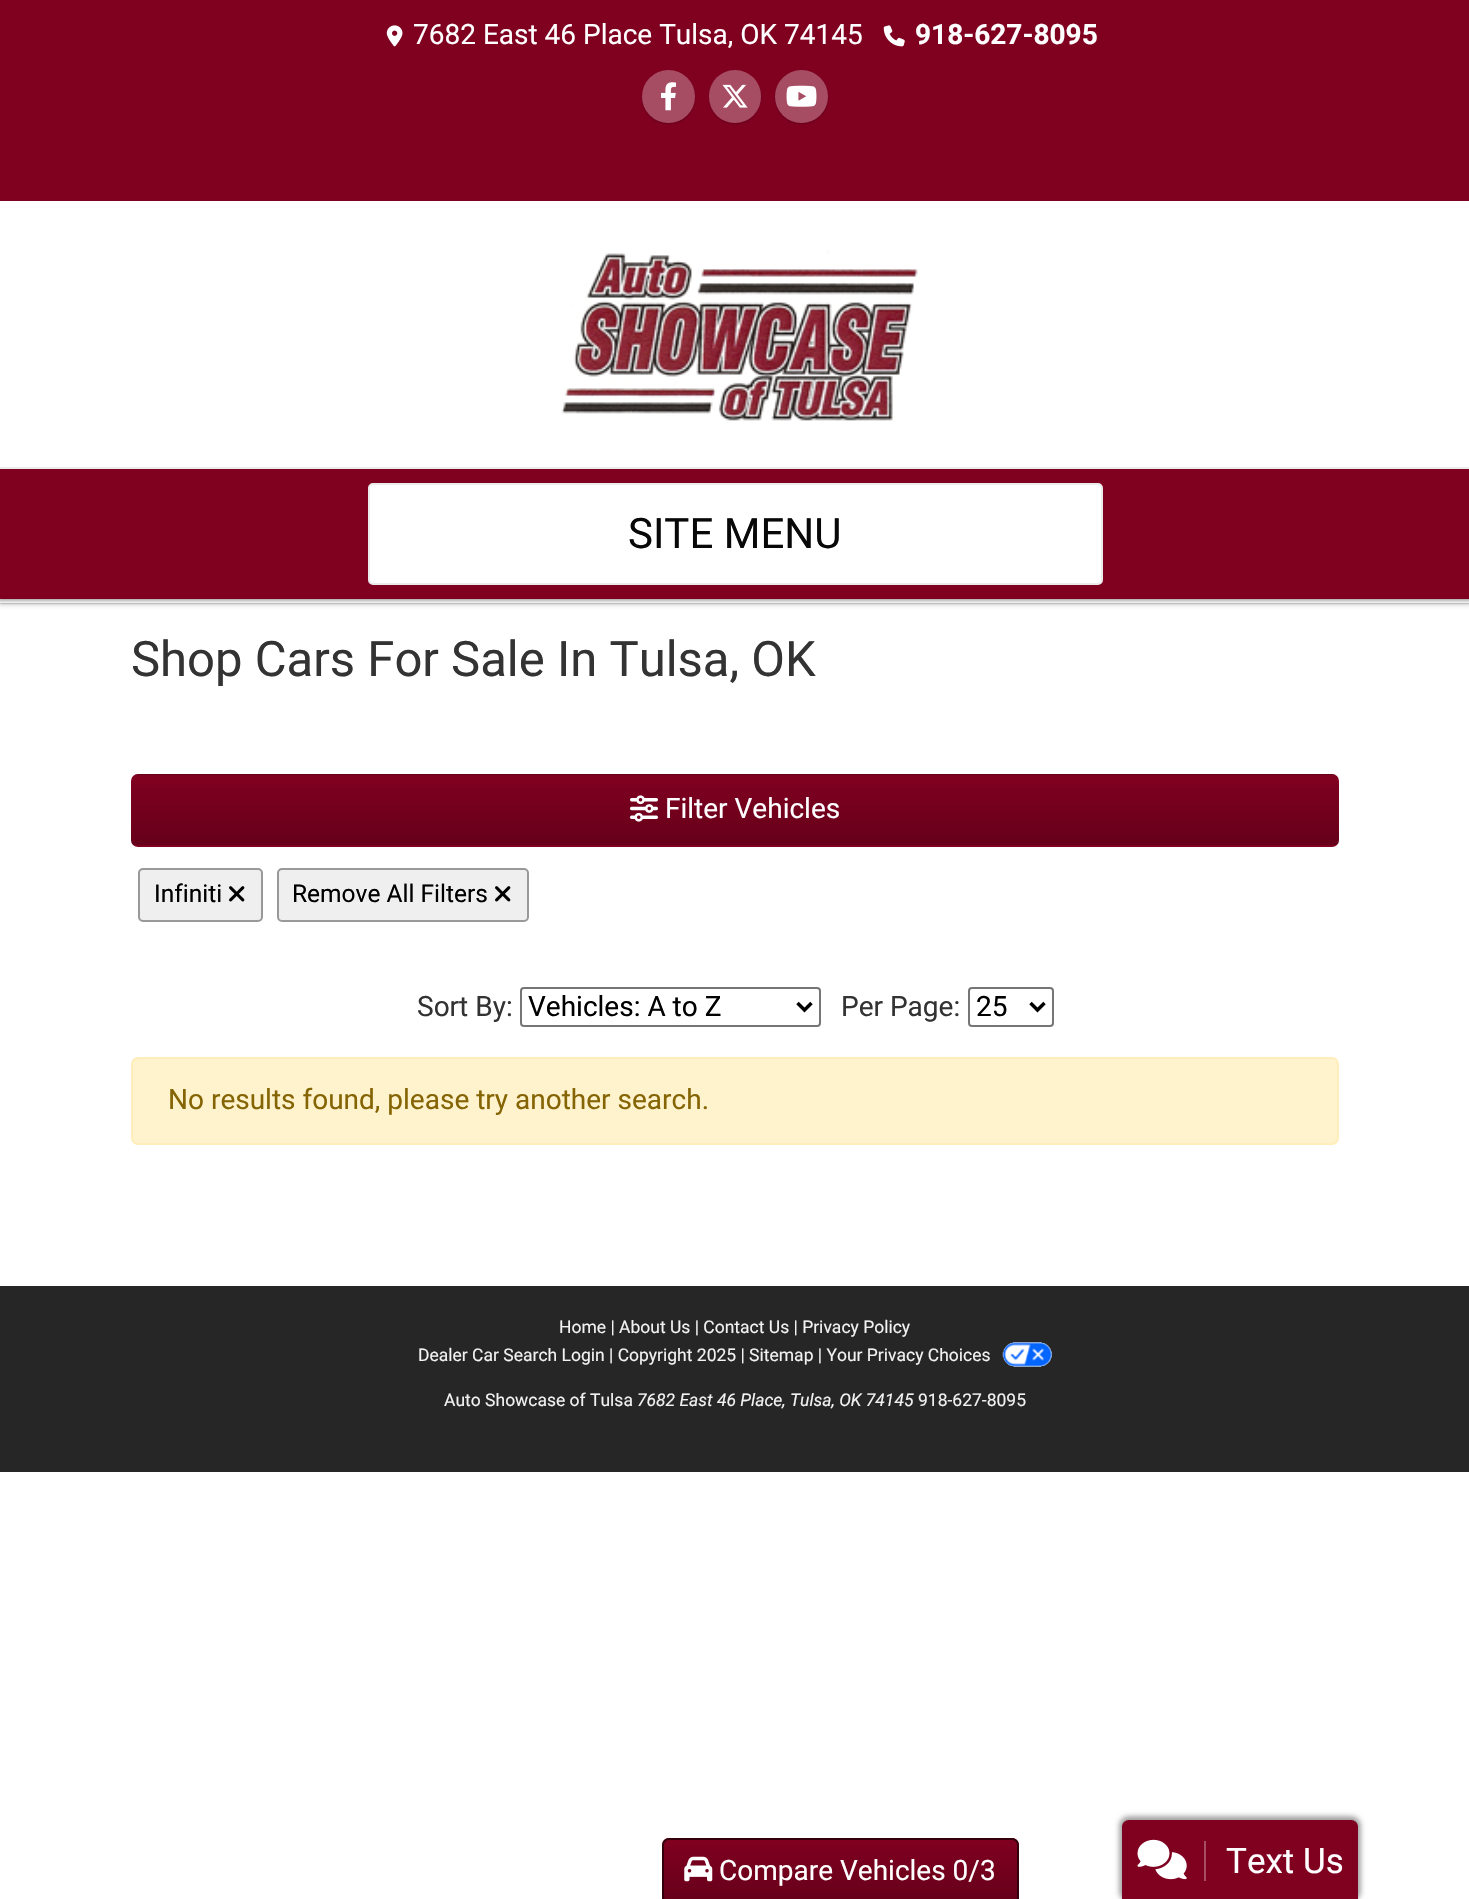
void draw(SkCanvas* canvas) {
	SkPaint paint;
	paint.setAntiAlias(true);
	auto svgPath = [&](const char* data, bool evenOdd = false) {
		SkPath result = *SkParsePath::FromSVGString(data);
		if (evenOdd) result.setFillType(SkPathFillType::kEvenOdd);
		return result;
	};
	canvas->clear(0xffffffff);
	paint.setColor(0x33000000);
	paint.setMaskFilter(SkMaskFilter::MakeBlur(kNormal_SkBlurStyle, 1));
	canvas->drawRect(SkRect::MakeXYWH(0, 600, 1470, 4), paint);
	paint.setMaskFilter(nullptr);
	paint.setColor(0x1a000000);
	paint.setMaskFilter(SkMaskFilter::MakeBlur(kNormal_SkBlurStyle, 2));
	canvas->drawRect(SkRect::MakeXYWH(-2, 599, 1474, 7), paint);
	paint.setMaskFilter(nullptr);
	paint.setColor(0xfff7f7f7);
	canvas->drawRect(SkRect::MakeXYWH(0, 602, 1469, 1), paint);
	paint.setColor(0xffebebeb);
	canvas->drawRect(SkRect::MakeXYWH(0, 599, 1469, 3), paint);
	canvas->save();
	canvas->clipRect(SkRect::MakeXYWH(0, 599, 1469, 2));
	paint.setColor(0x33000000);
	paint.setMaskFilter(SkMaskFilter::MakeBlur(kNormal_SkBlurStyle, 1));
	canvas->drawRect(SkRect::MakeXYWH(0, 2, 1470, 598), paint);
	paint.setMaskFilter(nullptr);
	canvas->restore();
	canvas->save();
	canvas->clipRect(SkRect::MakeXYWH(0, 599, 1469, 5));
	paint.setColor(0x1a000000);
	paint.setMaskFilter(SkMaskFilter::MakeBlur(kNormal_SkBlurStyle, 2));
	canvas->drawRect(SkRect::MakeXYWH(-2, 0, 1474, 602), paint);
	paint.setMaskFilter(nullptr);
	canvas->restore();
	paint.setColor(0xff800020);
	canvas->drawRect(SkRect::MakeXYWH(0, 0, 1469, 201), paint);
	canvas->drawImageRect(SkImages::DeferredFromEncodedData(SkData::MakeFromFileName("img1.png")), SkRect::MakeXYWH(386, 25, 17, 22), SkSamplingOptions());
	SkFont f1(fontMgr->matchFamilyStyle("Roboto", SkFontStyle::Normal()), 28);
	f1.setSubpixel(true);
	paint.setColor(0xffffffff);
	canvas->drawString("7682 East 46 Place Tulsa, OK 74145", 413, 44, f1, paint);
	canvas->drawImageRect(SkImages::DeferredFromEncodedData(SkData::MakeFromFileName("img2.png")), SkRect::MakeXYWH(883, 25, 22, 22), SkSamplingOptions());
	SkFont f2(fontMgr->matchFamilyStyle("Roboto", SkFontStyle::Bold()), 28);
	f2.setSubpixel(true);
	canvas->drawString("918-627-8095", 915, 44, f2, paint);
	canvas->save();
	canvas->clipPath(svgPath("M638 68H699V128H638ZM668.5 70C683 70 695 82 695 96.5C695 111 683 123 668.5 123C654 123 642 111 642 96.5C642 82 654 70 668.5 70Z", true), true);
	paint.setColor(0x33000000);
	paint.setMaskFilter(SkMaskFilter::MakeBlur(kNormal_SkBlurStyle, 1));
	canvas->drawRoundRect(SkRect::MakeXYWH(642, 72, 53, 52), 26, 26, paint);
	paint.setMaskFilter(nullptr);
	canvas->restore();
	paint.setColor(0x4dffffff);
	canvas->drawCircle(668.5, 96.5, 26.5, paint);
	canvas->drawImageRect(SkImages::DeferredFromEncodedData(SkData::MakeFromFileName("img3.png")), SkRect::MakeXYWH(661, 82, 15, 29), SkSamplingOptions());
	canvas->save();
	canvas->clipPath(svgPath("M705 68H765V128H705ZM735 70C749.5 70 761 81.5 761 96V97C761 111.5 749.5 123 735 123C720.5 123 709 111.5 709 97V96C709 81.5 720.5 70 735 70Z", true), true);
	paint.setColor(0x33000000);
	paint.setMaskFilter(SkMaskFilter::MakeBlur(kNormal_SkBlurStyle, 1));
	canvas->drawRoundRect(SkRect::MakeXYWH(709, 72, 52, 52), 26, 26, paint);
	paint.setMaskFilter(nullptr);
	canvas->restore();
	paint.setColor(0x4dffffff);
	canvas->drawRoundRect(SkRect::MakeXYWH(709, 70, 52, 53), 26, 26, paint);
	canvas->drawImageRect(SkImages::DeferredFromEncodedData(SkData::MakeFromFileName("img4.png")), SkRect::MakeXYWH(722, 84, 26, 24), SkSamplingOptions());
	canvas->save();
	canvas->clipPath(svgPath("M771 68H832V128H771ZM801.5 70C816 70 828 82 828 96.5C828 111 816 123 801.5 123C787 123 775 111 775 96.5C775 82 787 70 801.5 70Z", true), true);
	paint.setColor(0x33000000);
	paint.setMaskFilter(SkMaskFilter::MakeBlur(kNormal_SkBlurStyle, 1));
	canvas->drawRoundRect(SkRect::MakeXYWH(775, 72, 53, 52), 26, 26, paint);
	paint.setMaskFilter(nullptr);
	canvas->restore();
	paint.setColor(0x4dffffff);
	canvas->drawCircle(801.5, 96.5, 26.5, paint);
	canvas->drawImageRect(SkImages::DeferredFromEncodedData(SkData::MakeFromFileName("img5.png")), SkRect::MakeXYWH(786, 85, 31, 22), SkSamplingOptions());
	canvas->drawImageRect(SkImages::DeferredFromEncodedData(SkData::MakeFromFileName("img6.png")), SkRect::MakeXYWH(561, 251, 357, 170), SkSamplingOptions());
	paint.setColor(0xffebebeb);
	canvas->drawRect(SkRect::MakeXYWH(0, 467, 1469, 2), paint);
	paint.setColor(0xff800020);
	canvas->drawRect(SkRect::MakeXYWH(0, 469, 1469, 130), paint);
	paint.setColor(0xffffffff);
	canvas->drawRoundRect(SkRect::MakeXYWH(369, 484, 733, 100), 4, 4, paint);
	paint.setStroke(true);
	paint.setStrokeWidth(2);
	paint.setColor(0xffebebeb);
	canvas->drawRoundRect(SkRect::MakeXYWH(369, 484, 733, 100), 4, 4, paint);
	SkFont f3(fontMgr->matchFamilyStyle("Roboto", SkFontStyle::Normal()), 42);
	f3.setSubpixel(true);
	paint.setStroke(false);
	paint.setColor(0xff080808);
	canvas->drawString("SITE MENU", 628, 548, f3, paint);
	SkFont f4(fontMgr->matchFamilyStyle("Roboto", SkFontStyle::Normal()), 49);
	f4.setSubpixel(true);
	paint.setColor(0xff333333);
	canvas->drawString("Shop Cars For Sale In Tulsa, OK", 131, 676, f4, paint);
	paint.setColor(0xff800020);
	canvas->drawRoundRect(SkRect::MakeXYWH(131, 774, 1208, 73), 7, 7, paint);
	canvas->save();
	canvas->clipPath(svgPath("M138 774H1332C1336 774 1339 777 1339 781V840C1339 844 1336 847 1332 847H138C134 847 131 844 131 840V781C131 777 134 774 138 774Z"), true);
	{
		const SkColor colors[] = {0x00000000, 0x33000000};
		const float stops[] = {0, 1};
		const SkPoint ends[] = {{735, 705}, {735, 775}};
		paint.setShader(SkGradientShader::MakeLinear(ends, colors, stops, 2, SkTileMode::kClamp));
		paint.setAlpha(255);
	}
	canvas->drawRect(SkRect::MakeXYWH(131, 774, 1208, 1), paint);
	{
		const SkColor colors[] = {0x00000000, 0x33000000};
		const float stops[] = {0, 1};
		const SkPoint ends[] = {{735, 775}, {735, 845}};
		paint.setShader(SkGradientShader::MakeLinear(ends, colors, stops, 2, SkTileMode::kClamp));
		paint.setAlpha(255);
	}
	canvas->drawRect(SkRect::MakeXYWH(131, 783, 1208, 62), paint);
	canvas->restore();
	canvas->drawImageRect(SkImages::DeferredFromEncodedData(SkData::MakeFromFileName("img7.png")), SkRect::MakeXYWH(630, 795, 28, 27), SkSamplingOptions());
	paint.setShader(nullptr);
	paint.setColor(0xffffffff);
	canvas->drawString("Filter Vehicles", 665, 818, f1, paint);
	paint.setColor(0xffefefef);
	canvas->drawRoundRect(SkRect::MakeXYWH(139, 869, 123, 52), 4, 4, paint);
	paint.setStroke(true);
	paint.setColor(0xff999999);
	canvas->drawRoundRect(SkRect::MakeXYWH(139, 869, 123, 52), 4, 4, paint);
	SkFont f5(fontMgr->matchFamilyStyle("Roboto", SkFontStyle::Normal()), 24.5);
	f5.setSubpixel(true);
	paint.setStroke(false);
	paint.setColor(0xff000000);
	canvas->drawString("Infiniti", 154, 902, f5, paint);
	canvas->drawImageRect(SkImages::DeferredFromEncodedData(SkData::MakeFromFileName("img8.png")), SkRect::MakeXYWH(229, 886, 16, 16), SkSamplingOptions());
	paint.setColor(0xffefefef);
	canvas->drawRoundRect(SkRect::MakeXYWH(278, 869, 250, 52), 4, 4, paint);
	paint.setStroke(true);
	paint.setColor(0xff999999);
	canvas->drawRoundRect(SkRect::MakeXYWH(278, 869, 250, 52), 4, 4, paint);
	paint.setStroke(false);
	paint.setColor(0xff000000);
	canvas->drawString("Remove All Filters", 292, 902, f5, paint);
	canvas->drawImageRect(SkImages::DeferredFromEncodedData(SkData::MakeFromFileName("img8.png")), SkRect::MakeXYWH(495, 886, 16, 16), SkSamplingOptions());
	paint.setColor(0xff333333);
	canvas->drawString("Sort By:", 417, 1016, f1, paint);
	paint.setStroke(true);
	paint.setColor(0xff767676);
	canvas->drawRoundRect(SkRect::MakeXYWH(521, 988, 299, 38), 3, 3, paint);
	paint.setStrokeWidth(3.5);
	paint.setColor(0xff000000);
	canvas->drawPath(svgPath("M797.5 1003L804.5 1010L811.5 1003"), paint);
	paint.setStroke(false);
	canvas->drawString("Vehicles: A to Z", 528, 1016, f1, paint);
	paint.setColor(0xff333333);
	canvas->drawString("Per Page:", 841, 1016, f1, paint);
	paint.setStroke(true);
	paint.setStrokeWidth(2);
	paint.setColor(0xff767676);
	canvas->drawRoundRect(SkRect::MakeXYWH(969, 988, 84, 38), 3, 3, paint);
	paint.setStrokeWidth(3.5);
	paint.setColor(0xff000000);
	canvas->drawPath(svgPath("M1030.5 1003L1037.5 1010L1044.5 1003"), paint);
	paint.setStroke(false);
	canvas->drawString("25", 976, 1016, f1, paint);
	paint.setColor(0xfffff3cd);
	canvas->drawRoundRect(SkRect::MakeXYWH(132, 1058, 1206, 86), 6, 6, paint);
	paint.setStroke(true);
	paint.setStrokeWidth(2);
	paint.setColor(0xffffeeba);
	canvas->drawRoundRect(SkRect::MakeXYWH(132, 1058, 1206, 86), 6, 6, paint);
	paint.setStroke(false);
	paint.setColor(0xff856404);
	canvas->drawString("No results found, please try another search.", 168, 1109, f1, paint);
	paint.setColor(0xff800020);
	canvas->drawRoundRect(SkRect::MakeXYWH(662, 1838, 357, 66), 7, 7, paint);
	{
		const SkColor colors[] = {0x00000000, 0x33000000};
		const float stops[] = {0, 1};
		const SkPoint ends[] = {{840, 1839}, {840, 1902}};
		paint.setShader(SkGradientShader::MakeLinear(ends, colors, stops, 2, SkTileMode::kClamp));
		paint.setAlpha(255);
	}
	canvas->drawRect(SkRect::MakeXYWH(662, 1846, 357, 53), paint);
	paint.setStroke(true);
	paint.setShader(nullptr);
	paint.setColor(0xff34000d);
	canvas->drawRoundRect(SkRect::MakeXYWH(663, 1839, 355, 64), 6, 6, paint);
	canvas->drawImageRect(SkImages::DeferredFromEncodedData(SkData::MakeFromFileName("img9.png")), SkRect::MakeXYWH(684, 1856, 29, 26), SkSamplingOptions());
	paint.setStroke(false);
	paint.setColor(0xffffffff);
	canvas->drawString("Compare Vehicles 0/3", 719, 1880, f1, paint);
	paint.setColor(0xff262626);
	canvas->drawRect(SkRect::MakeXYWH(0, 1286, 1469, 186), paint);
	SkFont f6(fontMgr->matchFamilyStyle("Roboto", SkFontStyle::Normal()), 17.5);
	f6.setSubpixel(true);
	paint.setColor(0xfff2f2f2);
	canvas->drawString("Home | About Us | Contact Us | Privacy Policy", 559, 1333, f6, paint);
	canvas->drawString("Dealer Car Search Login | Copyright 2025 | Sitemap | Your Privacy Choices", 418, 1361, f6, paint);
	canvas->drawImageRect(SkImages::DeferredFromEncodedData(SkData::MakeFromFileName("img10.png")), SkRect::MakeXYWH(1002, 1342, 50, 25), SkSamplingOptions());
	canvas->drawString("Auto Showcase of Tulsa", 444, 1406, f6, paint);
	SkFont f7(fontMgr->matchFamilyStyle("Roboto", SkFontStyle::Italic()), 17.5);
	f7.setSubpixel(true);
	canvas->drawString("7682 East 46 Place, Tulsa, OK 74145", 637, 1406, f7, paint);
	canvas->drawString("918-627-8095", 918, 1406, f6, paint);
	paint.setColor(0x40000000);
	paint.setMaskFilter(SkMaskFilter::MakeBlur(kNormal_SkBlurStyle, 2));
	canvas->drawRoundRect(SkRect::MakeXYWH(1120, 1817, 240, 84), 9, 9, paint);
	paint.setMaskFilter(nullptr);
	paint.setColor(0x26000000);
	paint.setMaskFilter(SkMaskFilter::MakeBlur(kNormal_SkBlurStyle, 2.5));
	canvas->drawRoundRect(SkRect::MakeXYWH(1118, 1815, 244, 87), 11, 11, paint);
	paint.setMaskFilter(nullptr);
	paint.setColor(0xff800020);
	canvas->drawPath(svgPath("M1129 1820H1351C1355 1820 1358 1823 1358 1827V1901H1122V1827C1122 1823 1125 1820 1129 1820Z"), paint);
	paint.setColor(0xffa64d63);
	canvas->drawRect(SkRect::MakeXYWH(1204, 1841, 2, 40), paint);
	canvas->drawImageRect(SkImages::DeferredFromEncodedData(SkData::MakeFromFileName("img11.png")), SkRect::MakeXYWH(1137, 1839, 50, 41), SkSamplingOptions());
	SkFont f8(fontMgr->matchFamilyStyle("Roboto", SkFontStyle::Normal()), 35);
	f8.setSubpixel(true);
	paint.setColor(0xffffffff);
	canvas->drawString("Text Us", 1226, 1873, f8, paint);
}
